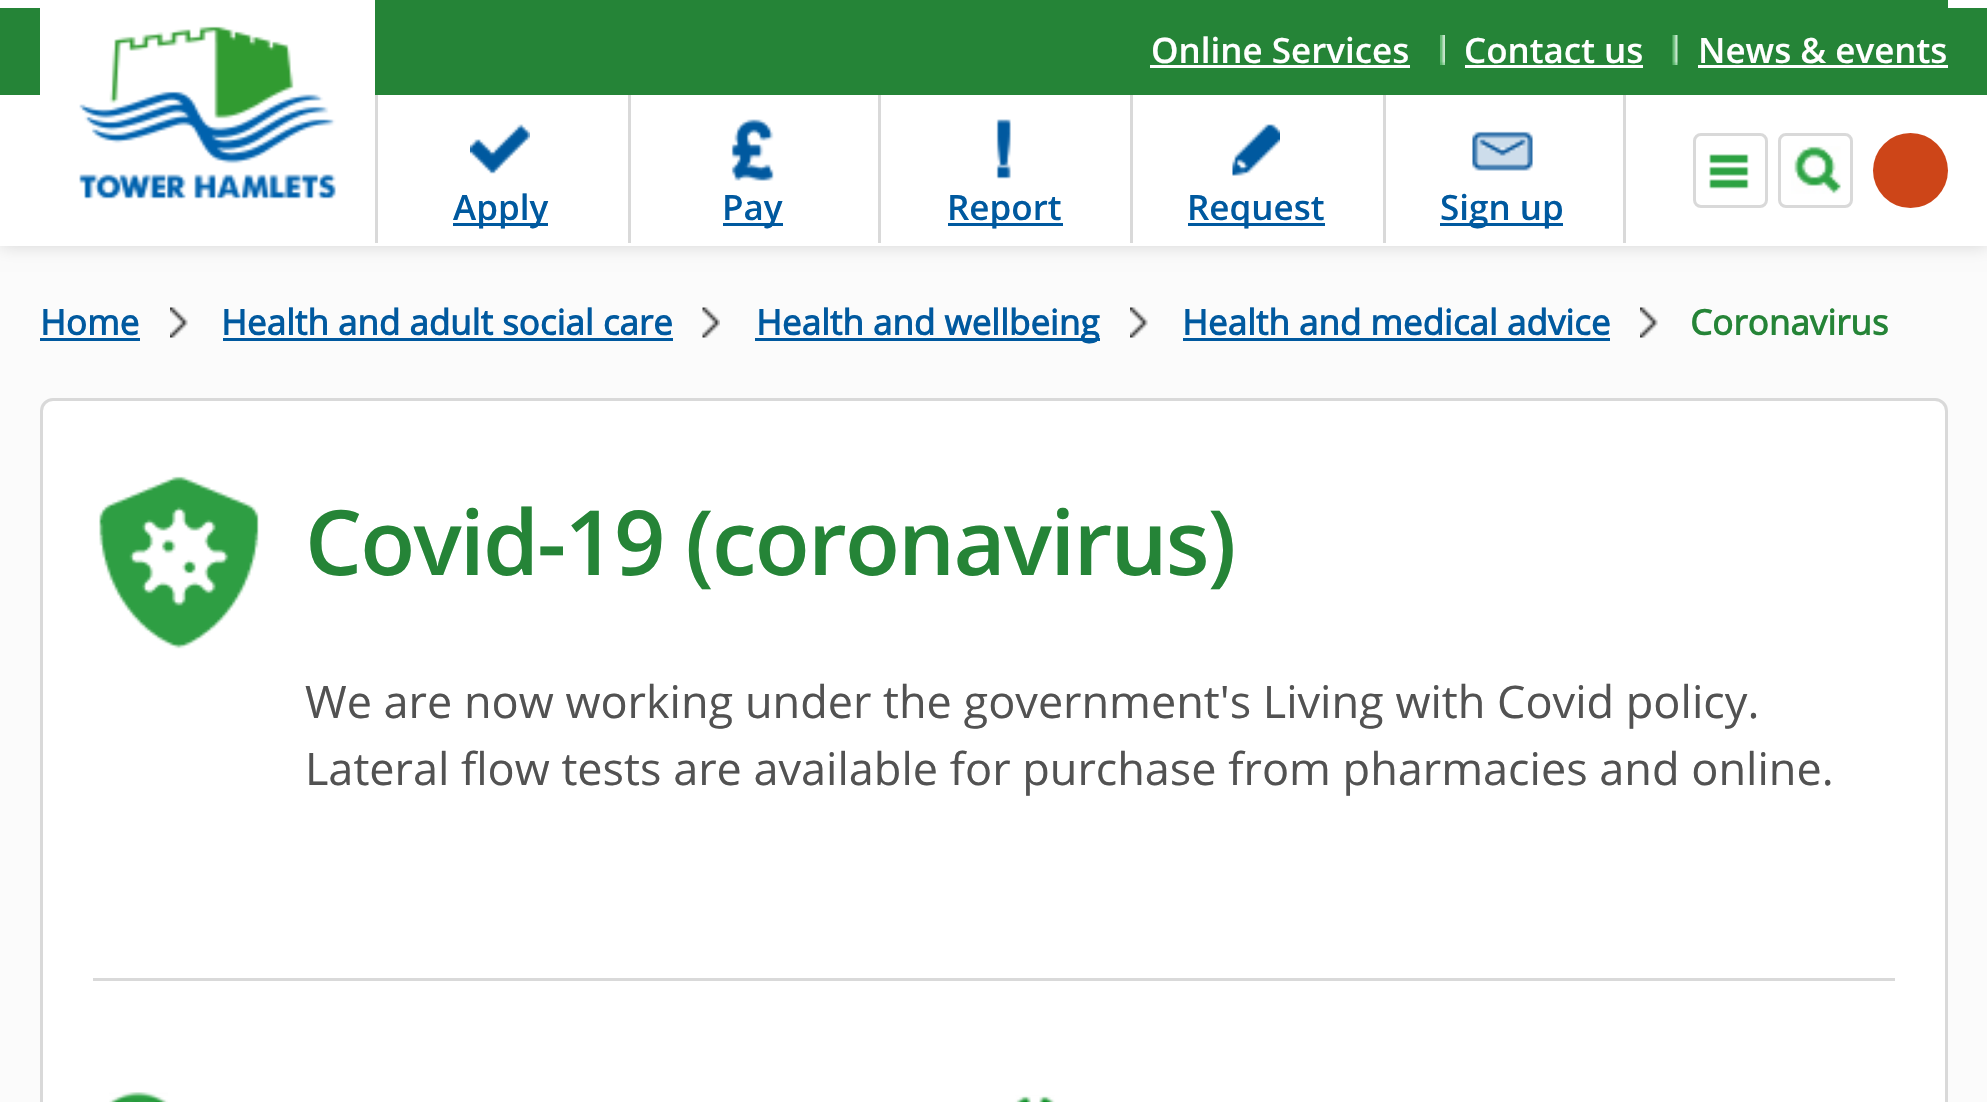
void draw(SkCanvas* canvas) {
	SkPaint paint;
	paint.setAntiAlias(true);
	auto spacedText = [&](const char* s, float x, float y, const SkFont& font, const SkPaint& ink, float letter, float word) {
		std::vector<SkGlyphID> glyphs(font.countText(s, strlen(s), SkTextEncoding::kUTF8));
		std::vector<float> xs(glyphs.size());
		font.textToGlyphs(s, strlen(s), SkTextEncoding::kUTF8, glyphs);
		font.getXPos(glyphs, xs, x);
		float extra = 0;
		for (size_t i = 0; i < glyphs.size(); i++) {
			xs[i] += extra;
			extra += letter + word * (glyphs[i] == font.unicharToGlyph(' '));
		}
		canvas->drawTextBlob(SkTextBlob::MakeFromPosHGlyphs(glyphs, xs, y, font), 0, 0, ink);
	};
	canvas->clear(0xfffbfbfb);
	paint.setColor(0xffd1d1d1);
	paint.setMaskFilter(SkMaskFilter::MakeBlur(kNormal_SkBlurStyle, 9));
	canvas->drawRect(SkRect::MakeXYWH(0, 0, 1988, 245), paint);
	paint.setMaskFilter(nullptr);
	paint.setColor(0xffffffff);
	canvas->drawRect(SkRect::MakeXYWH(0, 0, 1987, 8), paint);
	paint.setColor(0xff258437);
	canvas->drawRect(SkRect::MakeXYWH(0, 8, 1987, 87), paint);
	paint.setColor(0xffffffff);
	canvas->drawRect(SkRect::MakeXYWH(0, 95, 1987, 151), paint);
	canvas->drawRect(SkRect::MakeXYWH(40, 8, 335, 87), paint);
	canvas->drawImageRect(SkImages::DeferredFromEncodedData(SkData::MakeFromFileName("img1.png")), SkRect::MakeXYWH(79, 26, 257, 173), SkSamplingOptions());
	paint.setColor(0xff258437);
	canvas->drawRect(SkRect::MakeXYWH(375, 0, 1573, 8), paint);
	SkFont f1(fontMgr->matchFamilyStyle("Open Sans", SkFontStyle(600, SkFontStyle::kNormal_Width, SkFontStyle::kUpright_Slant)), 35);
	f1.setSubpixel(true);
	paint.setColor(0xffffffff);
	canvas->drawString("Online Services", 1151, 63, f1, paint);
	canvas->drawRect(SkRect::MakeXYWH(1150, 65, 260, 3), paint);
	canvas->drawImageRect(SkImages::DeferredFromEncodedData(SkData::MakeFromFileName("img2.png")), SkRect::MakeXYWH(1440, 35, 5, 30), SkSamplingOptions());
	canvas->drawString("Contact us", 1464, 63, f1, paint);
	canvas->drawRect(SkRect::MakeXYWH(1465, 65, 178, 3), paint);
	canvas->drawImageRect(SkImages::DeferredFromEncodedData(SkData::MakeFromFileName("img3.png")), SkRect::MakeXYWH(1672, 35, 6, 30), SkSamplingOptions());
	canvas->drawString("News & events", 1698, 63, f1, paint);
	canvas->drawRect(SkRect::MakeXYWH(1698, 65, 250, 3), paint);
	canvas->drawImageRect(SkImages::DeferredFromEncodedData(SkData::MakeFromFileName("img4.png")), SkRect::MakeXYWH(470, 124, 60, 50), SkSamplingOptions());
	paint.setColor(0xffd9d9d9);
	canvas->drawRect(SkRect::MakeXYWH(375, 95, 3, 148), paint);
	paint.setColor(0xff00599f);
	canvas->drawRect(SkRect::MakeXYWH(453, 223, 95, 3), paint);
	canvas->drawString("Apply", 453, 220, f1, paint);
	canvas->drawImageRect(SkImages::DeferredFromEncodedData(SkData::MakeFromFileName("img5.png")), SkRect::MakeXYWH(731, 119, 43, 62), SkSamplingOptions());
	paint.setColor(0xffd9d9d9);
	canvas->drawRect(SkRect::MakeXYWH(628, 95, 3, 148), paint);
	paint.setColor(0xff00599f);
	canvas->drawRect(SkRect::MakeXYWH(723, 223, 60, 3), paint);
	canvas->drawString("Pay", 722, 220, f1, paint);
	canvas->drawImageRect(SkImages::DeferredFromEncodedData(SkData::MakeFromFileName("img6.png")), SkRect::MakeXYWH(996, 119, 15, 60), SkSamplingOptions());
	paint.setColor(0xffd9d9d9);
	canvas->drawRect(SkRect::MakeXYWH(878, 95, 3, 148), paint);
	paint.setColor(0xff00599f);
	canvas->drawRect(SkRect::MakeXYWH(948, 223, 115, 3), paint);
	canvas->drawString("Report", 947, 220, f1, paint);
	canvas->drawImageRect(SkImages::DeferredFromEncodedData(SkData::MakeFromFileName("img7.png")), SkRect::MakeXYWH(1232, 124, 48, 52), SkSamplingOptions());
	paint.setColor(0xffd9d9d9);
	canvas->drawRect(SkRect::MakeXYWH(1130, 95, 3, 148), paint);
	paint.setColor(0xff00599f);
	canvas->drawRect(SkRect::MakeXYWH(1188, 223, 137, 3), paint);
	canvas->drawString("Request", 1187, 220, f1, paint);
	paint.setColor(0xffd9d9d9);
	canvas->drawRect(SkRect::MakeXYWH(1623, 95, 3, 148), paint);
	canvas->drawImageRect(SkImages::DeferredFromEncodedData(SkData::MakeFromFileName("img8.png")), SkRect::MakeXYWH(1472, 131, 61, 40), SkSamplingOptions());
	canvas->drawRect(SkRect::MakeXYWH(1383, 95, 3, 148), paint);
	paint.setColor(0xff00599f);
	canvas->drawRect(SkRect::MakeXYWH(1440, 223, 123, 3), paint);
	canvas->drawString("Sign up", 1440, 220, f1, paint);
	canvas->drawImageRect(SkImages::DeferredFromEncodedData(SkData::MakeFromFileName("img9.png")), SkRect::MakeXYWH(1709, 154, 40, 35), SkSamplingOptions());
	paint.setStroke(true);
	paint.setStrokeWidth(3);
	paint.setColor(0xffd9d9d9);
	canvas->drawRoundRect(SkRect::MakeXYWH(1694.5, 134.5, 72, 72), 6.5, 6.5, paint);
	canvas->drawImageRect(SkImages::DeferredFromEncodedData(SkData::MakeFromFileName("img10.png")), SkRect::MakeXYWH(1791, 146, 50, 48), SkSamplingOptions());
	canvas->drawRoundRect(SkRect::MakeXYWH(1779.5, 134.5, 72, 72), 6.5, 6.5, paint);
	paint.setStroke(false);
	paint.setColor(0xffcd4518);
	canvas->drawCircle(1910.5, 170.5, 37.5, paint);
	canvas->drawImageRect(SkImages::DeferredFromEncodedData(SkData::MakeFromFileName("img11.png")), SkRect::MakeXYWH(170, 307, 18, 31), SkSamplingOptions());
	SkFont f2(fontMgr->matchFamilyStyle("Open Sans", SkFontStyle::Bold()), 35);
	f2.setSubpixel(true);
	paint.setColor(0xff00599f);
	canvas->drawString("Home", 40, 335, f2, paint);
	canvas->drawRect(SkRect::MakeXYWH(40, 338, 100, 3), paint);
	canvas->drawImageRect(SkImages::DeferredFromEncodedData(SkData::MakeFromFileName("img12.png")), SkRect::MakeXYWH(702, 307, 18, 31), SkSamplingOptions());
	canvas->drawString("Health and adult social care", 221, 335, f2, paint);
	canvas->drawRect(SkRect::MakeXYWH(223, 338, 450, 3), paint);
	canvas->drawImageRect(SkImages::DeferredFromEncodedData(SkData::MakeFromFileName("img13.png")), SkRect::MakeXYWH(1130, 307, 18, 31), SkSamplingOptions());
	canvas->drawRect(SkRect::MakeXYWH(755, 338, 345, 3), paint);
	canvas->drawString("Health and wellbeing", 756, 335, f2, paint);
	canvas->drawImageRect(SkImages::DeferredFromEncodedData(SkData::MakeFromFileName("img11.png")), SkRect::MakeXYWH(1640, 307, 18, 31), SkSamplingOptions());
	canvas->drawString("Health and medical advice", 1182, 335, f2, paint);
	canvas->drawRect(SkRect::MakeXYWH(1183, 338, 427, 3), paint);
	paint.setColor(0xff258437);
	canvas->drawString("Coronavirus", 1690, 335, f2, paint);
	paint.setColor(0xffffffff);
	canvas->drawRoundRect(SkRect::MakeXYWH(41.5, 399.5, 1905, 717), 11.5, 11.5, paint);
	paint.setStroke(true);
	paint.setColor(0xffd9d9d9);
	canvas->drawRoundRect(SkRect::MakeXYWH(41.5, 399.5, 1905, 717), 11.5, 11.5, paint);
	canvas->drawImageRect(SkImages::DeferredFromEncodedData(SkData::MakeFromFileName("img14.png")), SkRect::MakeXYWH(99, 476, 160, 173), SkSamplingOptions());
	SkFont f3(fontMgr->matchFamilyStyle("Open Sans", SkFontStyle(600, SkFontStyle::kNormal_Width, SkFontStyle::kUpright_Slant)), 90);
	f3.setSubpixel(true);
	paint.setStroke(false);
	paint.setColor(0xff258437);
	spacedText("Covid-19 (coronavirus)", 305, 575, f3, paint, -1.8, 0);
	SkFont f4(fontMgr->matchFamilyStyle("Open Sans", SkFontStyle::Normal()), 45);
	f4.setSubpixel(true);
	paint.setColor(0xff525252);
	canvas->drawString("We are now working under the government's Living with Covid policy.", 305, 718, f4, paint);
	canvas->drawString("Lateral flow tests are available for purchase from pharmacies and online.", 305, 785, f4, paint);
	paint.setColor(0xffd9d9d9);
	canvas->drawRect(SkRect::MakeXYWH(93, 978, 1802, 3), paint);
	canvas->drawImageRect(SkImages::DeferredFromEncodedData(SkData::MakeFromFileName("img15.png")), SkRect::MakeXYWH(109, 1092, 59, 10), SkSamplingOptions());
	canvas->drawImageRect(SkImages::DeferredFromEncodedData(SkData::MakeFromFileName("img16.png")), SkRect::MakeXYWH(1015, 1095, 40, 7), SkSamplingOptions());
}
